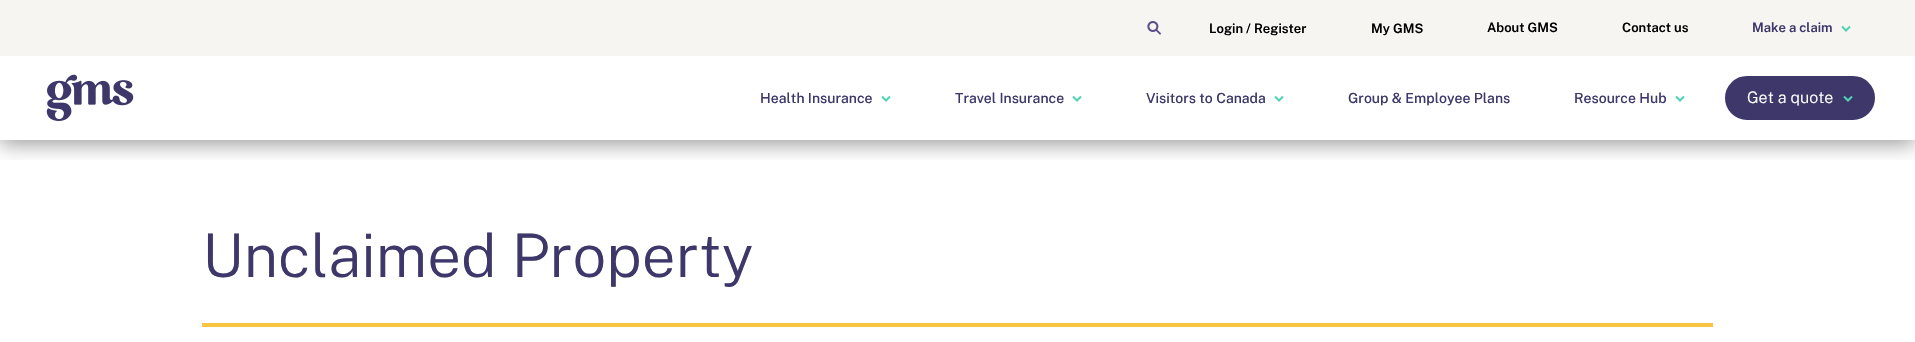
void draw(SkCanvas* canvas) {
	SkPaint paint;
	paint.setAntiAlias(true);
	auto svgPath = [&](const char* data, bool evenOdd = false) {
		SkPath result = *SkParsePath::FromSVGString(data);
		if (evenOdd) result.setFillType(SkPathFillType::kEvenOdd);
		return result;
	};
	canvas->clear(0xffffffff);
	canvas->save();
	canvas->clipRect(SkRect::MakeXYWH(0, 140, 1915, 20));
	paint.setColor(0x66000000);
	paint.setMaskFilter(SkMaskFilter::MakeBlur(kNormal_SkBlurStyle, 10));
	canvas->drawRect(SkRect::MakeXYWH(0, 4, 1915, 140), paint);
	paint.setMaskFilter(nullptr);
	canvas->restore();
	paint.setColor(0xfff6f5f2);
	canvas->drawRect(SkRect::MakeXYWH(0, 0, 1915, 56), paint);
	canvas->drawImageRect(SkImages::DeferredFromEncodedData(SkData::MakeFromFileName("img1.png")), SkRect::MakeXYWH(1147, 21, 14, 14), SkSamplingOptions());
	SkFont f1(fontMgr->matchFamilyStyle("Public Sans", SkFontStyle(600, SkFontStyle::kNormal_Width, SkFontStyle::kUpright_Slant)), 13);
	f1.setSubpixel(true);
	paint.setColor(0xff000000);
	canvas->drawString("Login / Register", 1209, 33, f1, paint);
	canvas->drawString("My GMS", 1371, 33, f1, paint);
	canvas->drawString("About GMS", 1487, 32, f1, paint);
	canvas->drawString("Contact us", 1622, 32, f1, paint);
	paint.setColor(0xff3d376a);
	canvas->drawString("Make a claim", 1752, 32, f1, paint);
	paint.setStroke(true);
	paint.setStrokeWidth(2);
	paint.setColor(0xff50d3b4);
	canvas->drawPath(svgPath("M1842 26.5L1846 30.5L1850 26.5"), paint);
	canvas->drawImageRect(SkImages::DeferredFromEncodedData(SkData::MakeFromFileName("img2.png")), SkRect::MakeXYWH(46, 74, 88, 47), SkSamplingOptions());
	SkFont f2(fontMgr->matchFamilyStyle("Public Sans", SkFontStyle(500, SkFontStyle::kNormal_Width, SkFontStyle::kUpright_Slant)), 14);
	f2.setSubpixel(true);
	paint.setStroke(false);
	paint.setColor(0xff3d376a);
	canvas->drawString("Health Insurance", 760, 103, f2, paint);
	paint.setStroke(true);
	paint.setColor(0xff50d3b4);
	canvas->drawPath(svgPath("M882 96.5L886 100.5L890 96.5"), paint);
	paint.setStroke(false);
	paint.setColor(0xff3d376a);
	canvas->drawString("Travel Insurance", 955, 103, f2, paint);
	paint.setStroke(true);
	paint.setColor(0xff50d3b4);
	canvas->drawPath(svgPath("M1073 96.5L1077 100.5L1081 96.5"), paint);
	paint.setStroke(false);
	paint.setColor(0xff3d376a);
	canvas->drawString("Visitors to Canada", 1146, 103, f2, paint);
	paint.setStroke(true);
	paint.setColor(0xff50d3b4);
	canvas->drawPath(svgPath("M1275 96.5L1279 100.5L1283 96.5"), paint);
	paint.setStroke(false);
	paint.setColor(0xff3d376a);
	canvas->drawString("Group & Employee Plans", 1348, 103, f2, paint);
	canvas->drawString("Resource Hub", 1574, 103, f2, paint);
	paint.setStroke(true);
	paint.setColor(0xff50d3b4);
	canvas->drawPath(svgPath("M1676 96.5L1680 100.5L1684 96.5"), paint);
	paint.setStroke(false);
	paint.setColor(0xff3d376a);
	canvas->drawRoundRect(SkRect::MakeXYWH(1726, 77, 148, 42), 21, 21, paint);
	paint.setStroke(true);
	canvas->drawRoundRect(SkRect::MakeXYWH(1726, 77, 148, 42), 21, 21, paint);
	SkFont f3(fontMgr->matchFamilyStyle("Public Sans", SkFontStyle(300, SkFontStyle::kNormal_Width, SkFontStyle::kUpright_Slant)), 16);
	f3.setSubpixel(true);
	paint.setStroke(false);
	paint.setColor(0xffffffff);
	canvas->drawString("Get a quote", 1747, 103, f3, paint);
	paint.setStroke(true);
	paint.setColor(0xff50d3b4);
	canvas->drawPath(svgPath("M1844 96.5L1848 100.5L1852 96.5"), paint);
	paint.setStroke(false);
	paint.setColor(0xfff8c441);
	canvas->drawRect(SkRect::MakeXYWH(202, 323, 1511, 4), paint);
	SkFont f4(fontMgr->matchFamilyStyle("Public Sans", SkFontStyle(300, SkFontStyle::kNormal_Width, SkFontStyle::kUpright_Slant)), 60);
	f4.setSubpixel(true);
	paint.setColor(0xff3d376a);
	canvas->drawString("Unclaimed Property", 202, 277, f4, paint);
}
